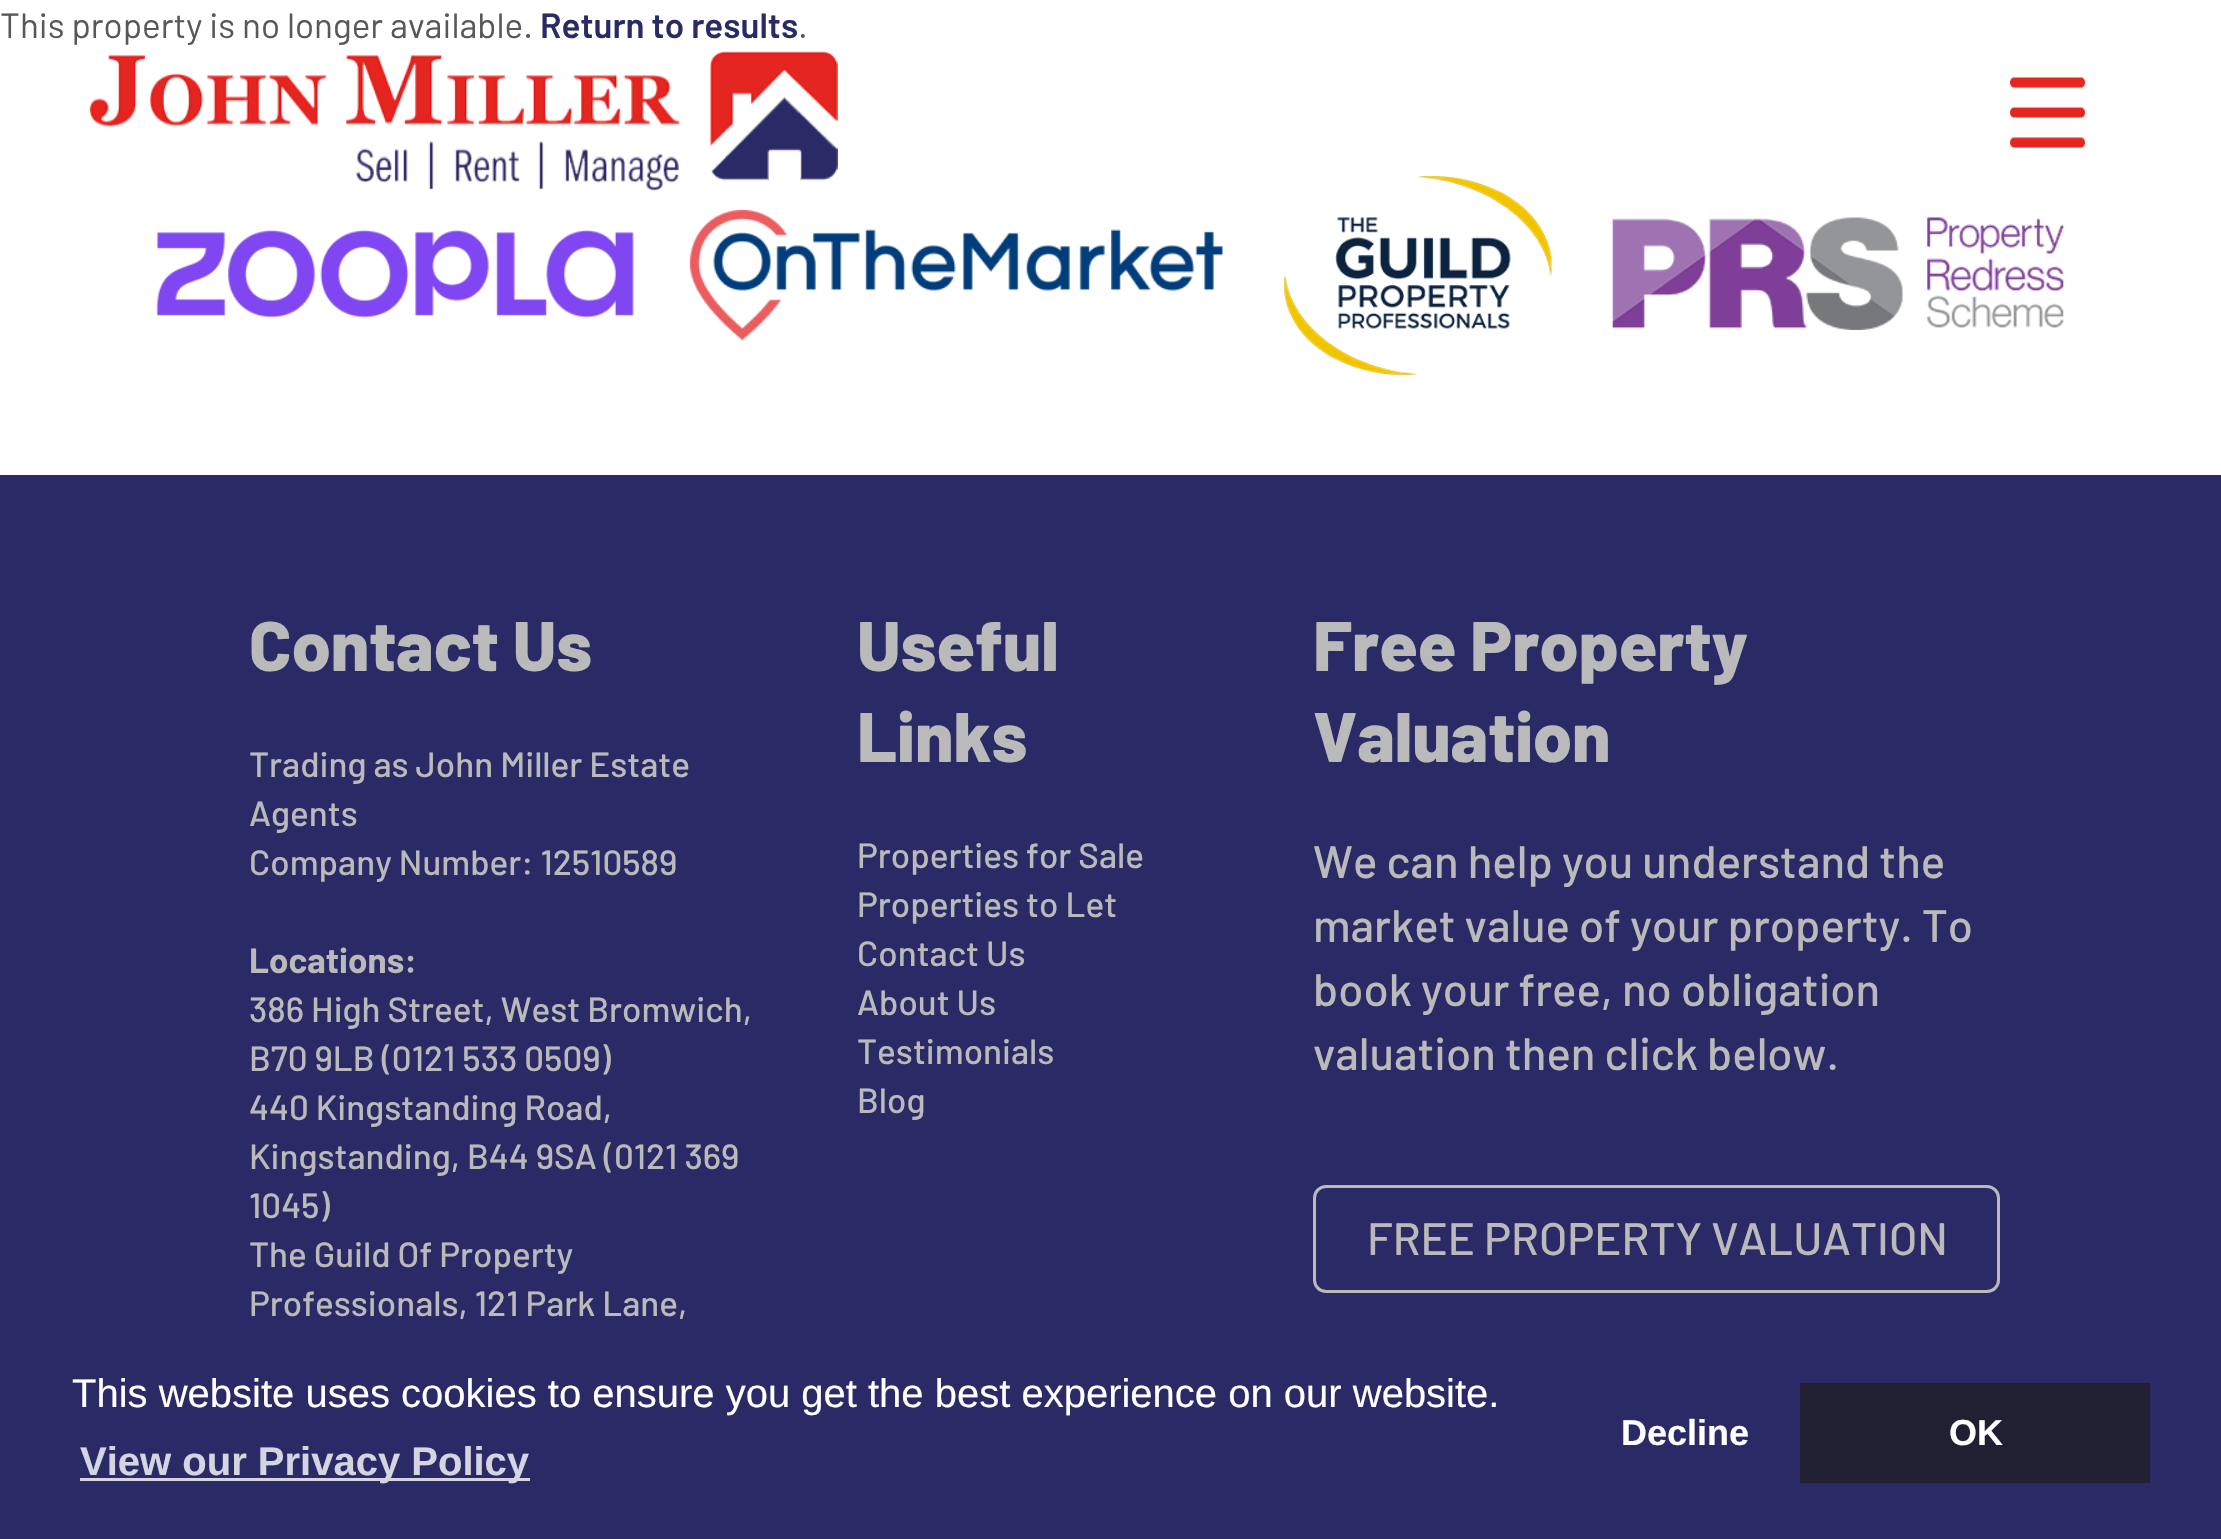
void draw(SkCanvas* canvas) {
	SkPaint paint;
	paint.setAntiAlias(true);
	canvas->clear(0xffffffff);
	SkFont f1(fontMgr->matchFamilyStyle("Barlow", SkFontStyle::Normal()), 35);
	f1.setSubpixel(true);
	paint.setColor(0xff585857);
	canvas->drawString("This property is no longer available.", 0, 38, f1, paint);
	SkFont f2(fontMgr->matchFamilyStyle("Barlow", SkFontStyle(600, SkFontStyle::kNormal_Width, SkFontStyle::kUpright_Slant)), 35);
	f2.setSubpixel(true);
	paint.setColor(0xff2a2b66);
	canvas->drawString("Return to results", 540, 38, f2, paint);
	paint.setColor(0xff585857);
	canvas->drawString(".", 798, 38, f1, paint);
	canvas->drawImageRect(SkImages::DeferredFromEncodedData(SkData::MakeFromFileName("img1.png")), SkRect::MakeXYWH(89, 51, 749, 140), SkSamplingOptions());
	canvas->drawImageRect(SkImages::DeferredFromEncodedData(SkData::MakeFromFileName("img2.png")), SkRect::MakeXYWH(156, 230, 478, 88), SkSamplingOptions());
	canvas->drawImageRect(SkImages::DeferredFromEncodedData(SkData::MakeFromFileName("img3.png")), SkRect::MakeXYWH(690, 210, 533, 130), SkSamplingOptions());
	canvas->drawImageRect(SkImages::DeferredFromEncodedData(SkData::MakeFromFileName("img4.png")), SkRect::MakeXYWH(1284, 176, 268, 199), SkSamplingOptions());
	canvas->drawImageRect(SkImages::DeferredFromEncodedData(SkData::MakeFromFileName("img5.png")), SkRect::MakeXYWH(1612, 217, 452, 113), SkSamplingOptions());
	paint.setColor(0xff2a2b66);
	canvas->drawRect(SkRect::MakeXYWH(0, 475, 2221, 1064), paint);
	SkFont f3(fontMgr->matchFamilyStyle("Barlow", SkFontStyle(800, SkFontStyle::kNormal_Width, SkFontStyle::kUpright_Slant)), 70);
	f3.setSubpixel(true);
	paint.setColor(0xffbababa);
	canvas->drawString("Contact Us", 249, 671, f3, paint);
	SkFont f4(fontMgr->matchFamilyStyle("Barlow", SkFontStyle(500, SkFontStyle::kNormal_Width, SkFontStyle::kUpright_Slant)), 35);
	f4.setSubpixel(true);
	canvas->drawString("Trading as John Miller Estate", 249, 777, f4, paint);
	canvas->drawString("Agents", 249, 826, f4, paint);
	canvas->drawString("Company Number: 12510589", 249, 875, f4, paint);
	SkFont f5(fontMgr->matchFamilyStyle("Barlow", SkFontStyle::Bold()), 35);
	f5.setSubpixel(true);
	canvas->drawString("Locations:", 249, 973, f5, paint);
	canvas->drawString("386 High Street, West Bromwich,", 249, 1022, f4, paint);
	canvas->drawString("B70 9LB (0121 533 0509)", 249, 1071, f4, paint);
	canvas->drawString("440 Kingstanding Road,", 249, 1120, f4, paint);
	canvas->drawString("Kingstanding, B44 9SA (0121 369", 249, 1169, f4, paint);
	canvas->drawString("1045)", 249, 1218, f4, paint);
	canvas->drawString("The Guild Of Property", 249, 1267, f4, paint);
	canvas->drawString("Professionals, 121 Park Lane,", 249, 1316, f4, paint);
	canvas->drawString("Useful", 857, 671, f3, paint);
	canvas->drawString("Links", 857, 762, f3, paint);
	canvas->drawString("Properties for Sale", 857, 868, f4, paint);
	canvas->drawString("Properties to Let", 857, 917, f4, paint);
	canvas->drawString("Contact Us", 857, 966, f4, paint);
	canvas->drawString("About Us", 857, 1015, f4, paint);
	canvas->drawString("Testimonials", 857, 1064, f4, paint);
	canvas->drawString("Blog", 857, 1113, f4, paint);
	canvas->drawString("Free Property", 1313, 671, f3, paint);
	canvas->drawString("Valuation", 1313, 762, f3, paint);
	SkFont f6(fontMgr->matchFamilyStyle("Barlow", SkFontStyle(500, SkFontStyle::kNormal_Width, SkFontStyle::kUpright_Slant)), 45.5);
	f6.setSubpixel(true);
	canvas->drawString("We can help you understand the", 1313, 878, f6, paint);
	canvas->drawString("market value of your property. To", 1313, 942, f6, paint);
	canvas->drawString("book your free, no obligation", 1313, 1006, f6, paint);
	canvas->drawString("valuation then click below.", 1313, 1070, f6, paint);
	paint.setStroke(true);
	paint.setStrokeWidth(3);
	canvas->drawRoundRect(SkRect::MakeXYWH(1314.5, 1186.5, 684, 105), 11.5, 11.5, paint);
	paint.setStroke(false);
	canvas->drawString("FREE PROPERTY VALUATION", 1367, 1255, f6, paint);
	canvas->drawImageRect(SkImages::DeferredFromEncodedData(SkData::MakeFromFileName("img6.png")), SkRect::MakeXYWH(2010, 77, 75, 71), SkSamplingOptions());
	SkFont f7(fontMgr->matchFamilyStyle("Liberation Sans", SkFontStyle::Normal()), 40);
	f7.setSubpixel(true);
	paint.setColor(0xffffffff);
	canvas->drawString("This website uses cookies to ensure you get the best experience on our website.", 72, 1407, f7, paint);
	paint.setColor(0xffd4d5e0);
	canvas->drawRect(SkRect::MakeXYWH(80, 1478, 450, 3), paint);
	SkFont f8(fontMgr->matchFamilyStyle("Liberation Sans", SkFontStyle::Bold()), 40);
	f8.setSubpixel(true);
	canvas->drawString("View our Privacy Policy", 80, 1475, f8, paint);
	SkFont f9(fontMgr->matchFamilyStyle("Liberation Sans", SkFontStyle::Bold()), 36);
	f9.setSubpixel(true);
	paint.setColor(0xffffffff);
	canvas->drawString("Decline", 1621, 1445, f9, paint);
	paint.setColor(0xff202032);
	canvas->drawRect(SkRect::MakeXYWH(1800, 1383, 350, 100), paint);
	paint.setColor(0xffffffff);
	canvas->drawString("OK", 1949, 1445, f9, paint);
}
